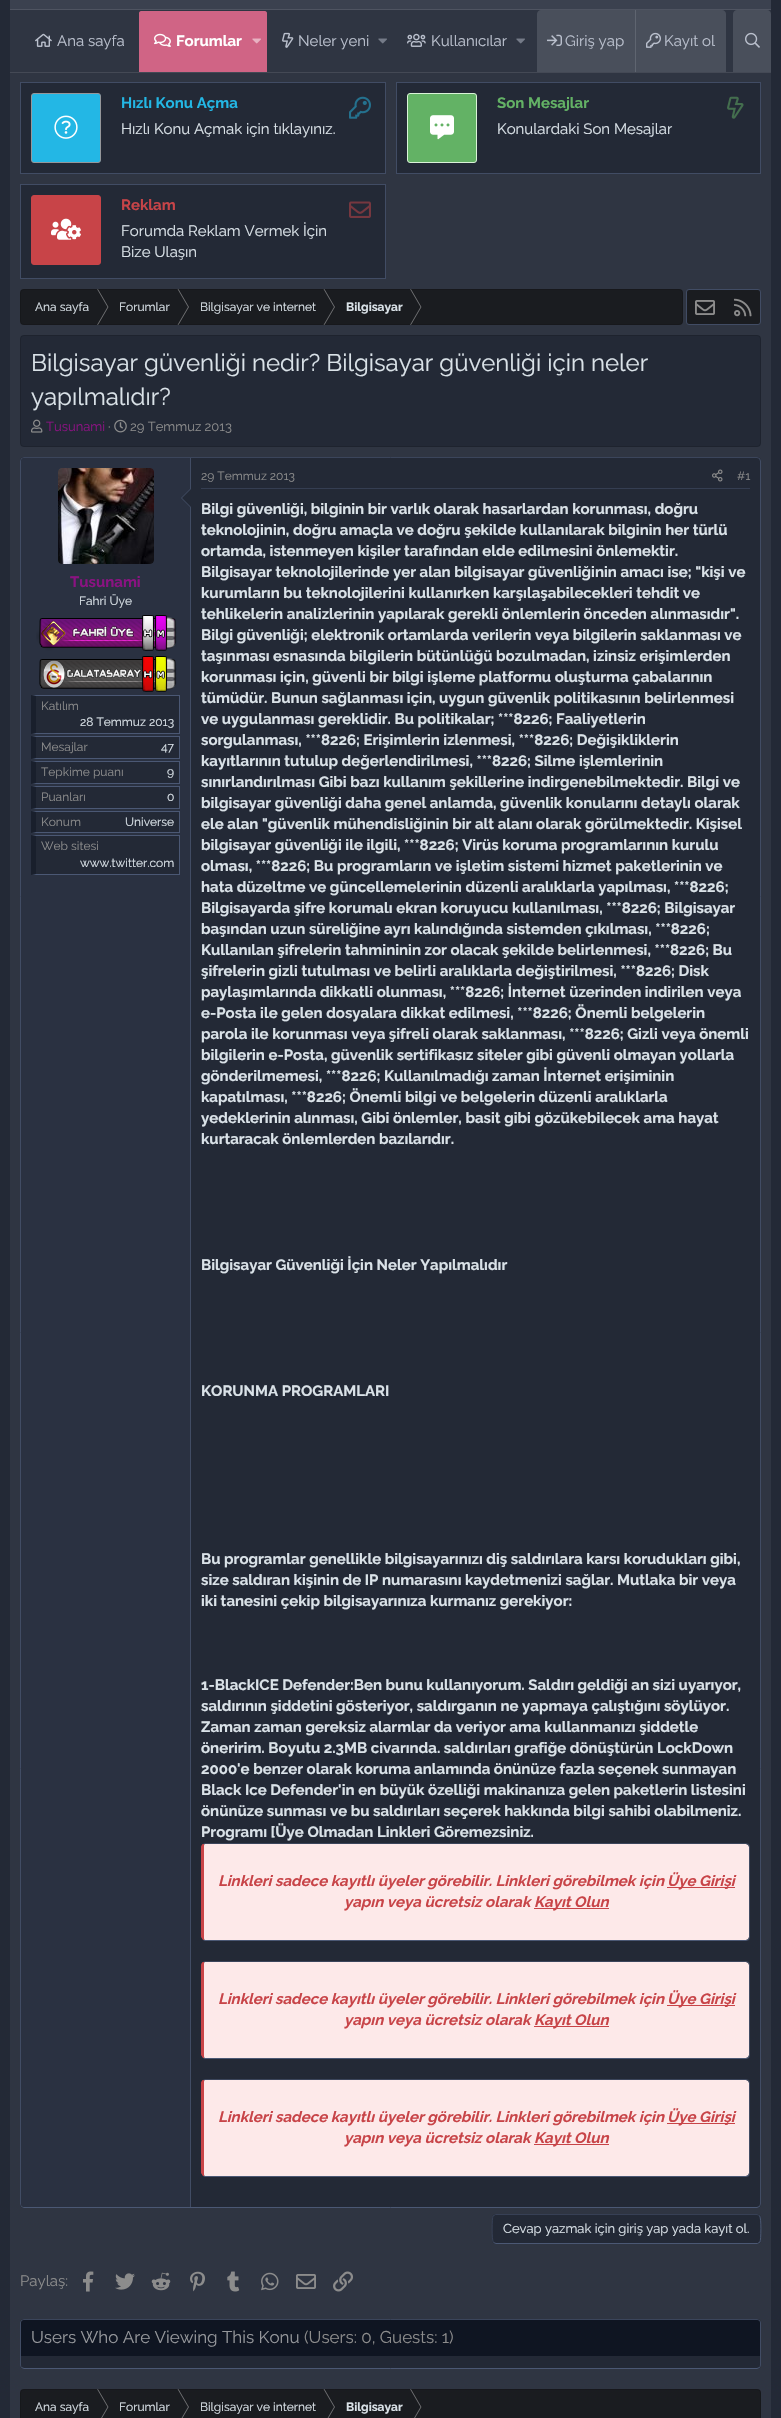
void draw(SkCanvas* canvas) {
	SkPaint paint;
	paint.setAntiAlias(true);
	auto svgPath = [&](const char* data, bool evenOdd = false) {
		SkPath result = *SkParsePath::FromSVGString(data);
		if (evenOdd) result.setFillType(SkPathFillType::kEvenOdd);
		return result;
	};
	canvas->clear(0xff232936);
	paint.setColor(0xff3b414f);
	canvas->drawRect(SkRect::MakeXYWH(10, 0, 761, 9), paint);
	paint.setColor(0xff4f5461);
	canvas->drawRect(SkRect::MakeXYWH(10, 9, 761, 1), paint);
	paint.setColor(0xff444955);
	canvas->drawRect(SkRect::MakeXYWH(10, 72, 761, 1), paint);
	paint.setColor(0xff2f3542);
	canvas->drawRect(SkRect::MakeXYWH(10, 10, 761, 62), paint);
	canvas->drawImageRect(SkImages::DeferredFromEncodedData(SkData::MakeFromFileName("img1.png")), SkRect::MakeXYWH(35, 33, 17, 14), SkSamplingOptions());
	SkFont f1(fontMgr->matchFamilyStyle("Raleway", SkFontStyle::Normal()), 15);
	f1.setSubpixel(true);
	paint.setColor(0xffbac0cd);
	canvas->drawString("Ana sayfa", 57, 46, f1, paint);
	paint.setColor(0xffd06485);
	canvas->drawPath(svgPath("M141 11H265C266 11 267 12 267 13V72H139V13C139 12 140 11 141 11Z"), paint);
	canvas->drawImageRect(SkImages::DeferredFromEncodedData(SkData::MakeFromFileName("img2.png")), SkRect::MakeXYWH(154, 33, 17, 14), SkSamplingOptions());
	SkFont f2(fontMgr->matchFamilyStyle("Raleway", SkFontStyle::Bold()), 15);
	f2.setSubpixel(true);
	paint.setColor(0xffffffff);
	canvas->drawString("Forumlar", 176, 46, f2, paint);
	canvas->drawImageRect(SkImages::DeferredFromEncodedData(SkData::MakeFromFileName("img3.png")), SkRect::MakeXYWH(252, 38, 9, 6), SkSamplingOptions());
	canvas->drawImageRect(SkImages::DeferredFromEncodedData(SkData::MakeFromFileName("img4.png")), SkRect::MakeXYWH(282, 32, 12, 16), SkSamplingOptions());
	paint.setColor(0xffbac0cd);
	canvas->drawString("Neler yeni", 298, 46, f1, paint);
	canvas->drawImageRect(SkImages::DeferredFromEncodedData(SkData::MakeFromFileName("img5.png")), SkRect::MakeXYWH(378, 38, 9, 6), SkSamplingOptions());
	canvas->drawImageRect(SkImages::DeferredFromEncodedData(SkData::MakeFromFileName("img6.png")), SkRect::MakeXYWH(407, 33, 19, 14), SkSamplingOptions());
	canvas->drawString("Kullanıcılar", 431, 46, f1, paint);
	canvas->drawImageRect(SkImages::DeferredFromEncodedData(SkData::MakeFromFileName("img5.png")), SkRect::MakeXYWH(516, 38, 9, 6), SkSamplingOptions());
	paint.setColor(0xff494f5b);
	canvas->drawPath(svgPath("M541 10H722C724 10 726 12 726 14V72H537V14C537 12 539 10 541 10Z"), paint);
	canvas->drawImageRect(SkImages::DeferredFromEncodedData(SkData::MakeFromFileName("img7.png")), SkRect::MakeXYWH(547, 34, 15, 12), SkSamplingOptions());
	paint.setColor(0xffbac0cd);
	canvas->drawString("Giriş yap", 565, 46, f1, paint);
	paint.setColor(0xff5f6570);
	canvas->drawRect(SkRect::MakeXYWH(635, 10, 1, 62), paint);
	canvas->drawImageRect(SkImages::DeferredFromEncodedData(SkData::MakeFromFileName("img8.png")), SkRect::MakeXYWH(646, 32, 15, 16), SkSamplingOptions());
	paint.setColor(0xffbac0cd);
	canvas->drawString("Kayıt ol", 664, 46, f1, paint);
	paint.setColor(0xff494f5b);
	canvas->drawPath(svgPath("M737 10H767C769 10 771 12 771 14V72H733V14C733 12 735 10 737 10Z"), paint);
	canvas->drawImageRect(SkImages::DeferredFromEncodedData(SkData::MakeFromFileName("img9.png")), SkRect::MakeXYWH(745, 32, 15, 16), SkSamplingOptions());
	paint.setColor(0xff2f3542);
	canvas->drawRect(SkRect::MakeXYWH(10, 73, 761, 2345), paint);
	paint.setColor(0xff232936);
	canvas->drawRect(SkRect::MakeXYWH(20.5, 82.5, 365, 91), paint);
	paint.setStroke(true);
	paint.setStrokeWidth(1);
	paint.setColor(0xff414c64);
	canvas->drawRect(SkRect::MakeXYWH(20.5, 82.5, 365, 91), paint);
	paint.setStroke(false);
	paint.setColor(0xff23b7e5);
	canvas->drawRoundRect(SkRect::MakeXYWH(31.5, 93.5, 69, 69), 2.5, 2.5, paint);
	paint.setStroke(true);
	paint.setColor(0xff95979b);
	canvas->drawRoundRect(SkRect::MakeXYWH(31.5, 93.5, 69, 69), 2.5, 2.5, paint);
	canvas->drawImageRect(SkImages::DeferredFromEncodedData(SkData::MakeFromFileName("img10.png")), SkRect::MakeXYWH(54, 115, 24, 24), SkSamplingOptions());
	paint.setStroke(false);
	paint.setColor(0xff23b7e5);
	canvas->drawString("Hızlı Konu Açma", 121, 108, f2, paint);
	paint.setColor(0xffdae2e8);
	canvas->drawString("Hızlı Konu Açmak için tıklayınız.", 121, 134, f1, paint);
	canvas->drawImageRect(SkImages::DeferredFromEncodedData(SkData::MakeFromFileName("img11.png")), SkRect::MakeXYWH(349, 96, 22, 23), SkSamplingOptions());
	paint.setColor(0xff232936);
	canvas->drawRect(SkRect::MakeXYWH(396.5, 82.5, 364, 91), paint);
	paint.setStroke(true);
	paint.setColor(0xff414c64);
	canvas->drawRect(SkRect::MakeXYWH(396.5, 82.5, 364, 91), paint);
	paint.setStroke(false);
	paint.setColor(0xff63b265);
	canvas->drawRoundRect(SkRect::MakeXYWH(407.5, 93.5, 69, 69), 2.5, 2.5, paint);
	paint.setStroke(true);
	paint.setColor(0xffdaf3d8);
	canvas->drawRoundRect(SkRect::MakeXYWH(407.5, 93.5, 69, 69), 2.5, 2.5, paint);
	canvas->drawImageRect(SkImages::DeferredFromEncodedData(SkData::MakeFromFileName("img12.png")), SkRect::MakeXYWH(430, 115, 24, 25), SkSamplingOptions());
	paint.setStroke(false);
	paint.setColor(0xff63b265);
	canvas->drawString("Son Mesajlar", 497, 108, f2, paint);
	paint.setColor(0xffdae2e8);
	canvas->drawString("Konulardaki Son Mesajlar", 497, 134, f1, paint);
	canvas->drawImageRect(SkImages::DeferredFromEncodedData(SkData::MakeFromFileName("img13.png")), SkRect::MakeXYWH(727, 96, 17, 23), SkSamplingOptions());
	paint.setColor(0xff232936);
	canvas->drawRect(SkRect::MakeXYWH(20.5, 184.5, 365, 94), paint);
	paint.setStroke(true);
	paint.setColor(0xff414c64);
	canvas->drawRect(SkRect::MakeXYWH(20.5, 184.5, 365, 94), paint);
	paint.setStroke(false);
	paint.setColor(0xffc84448);
	canvas->drawRoundRect(SkRect::MakeXYWH(31.5, 195.5, 69, 69), 2.5, 2.5, paint);
	paint.setStroke(true);
	canvas->drawRoundRect(SkRect::MakeXYWH(31.5, 195.5, 69, 69), 2.5, 2.5, paint);
	canvas->drawImageRect(SkImages::DeferredFromEncodedData(SkData::MakeFromFileName("img14.png")), SkRect::MakeXYWH(51, 218, 30, 22), SkSamplingOptions());
	paint.setStroke(false);
	canvas->drawString("Reklam", 121, 210, f2, paint);
	paint.setColor(0xffdae2e8);
	canvas->drawString("Forumda Reklam Vermek İçin", 121, 236, f1, paint);
	canvas->drawString("Bize Ulaşın", 121, 257, f1, paint);
	canvas->drawImageRect(SkImages::DeferredFromEncodedData(SkData::MakeFromFileName("img15.png")), SkRect::MakeXYWH(349, 201, 22, 17), SkSamplingOptions());
	paint.setColor(0xff1a1c20);
	canvas->drawRoundRect(SkRect::MakeXYWH(20, 289, 663, 36), 4, 4, paint);
	paint.setColor(0xff717275);
	canvas->drawPath(svgPath("M97 289H98L108.5 307H107.5Z"), paint);
	paint.setColor(0x1a000000);
	canvas->drawPath(svgPath("M98 289H99L109.5 307H108.5Z"), paint);
	paint.setColor(0xff717275);
	canvas->drawPath(svgPath("M107.5 307H108.5L98 325H97Z"), paint);
	paint.setColor(0x1a000000);
	canvas->drawPath(svgPath("M108.5 307H109.5L99 325H98Z"), paint);
	paint.setColor(0xff717275);
	canvas->drawPath(svgPath("M177.5 289H178.5L189 307H188Z"), paint);
	paint.setColor(0x1a000000);
	canvas->drawPath(svgPath("M178.5 289H179.5L190 307H189Z"), paint);
	paint.setColor(0xff717275);
	canvas->drawPath(svgPath("M188 307H189L178.5 325H177.5Z"), paint);
	paint.setColor(0x1a000000);
	canvas->drawPath(svgPath("M189 307H190L179.5 325H178.5Z"), paint);
	paint.setColor(0xff717275);
	canvas->drawPath(svgPath("M323.5 289H324.5L335 307H334Z"), paint);
	paint.setColor(0x1a000000);
	canvas->drawPath(svgPath("M324.5 289H325.5L336 307H335Z"), paint);
	paint.setColor(0xff717275);
	canvas->drawPath(svgPath("M334 307H335L324.5 325H323.5Z"), paint);
	paint.setColor(0x1a000000);
	canvas->drawPath(svgPath("M335 307H336L325.5 325H324.5Z"), paint);
	paint.setColor(0xff717275);
	canvas->drawPath(svgPath("M410 289H411L421.5 307H420.5Z"), paint);
	paint.setColor(0x1a000000);
	canvas->drawPath(svgPath("M411 289H412L422.5 307H421.5Z"), paint);
	paint.setColor(0xff717275);
	canvas->drawPath(svgPath("M420.5 307H421.5L411 325H410Z"), paint);
	paint.setColor(0x1a000000);
	canvas->drawPath(svgPath("M421.5 307H422.5L412 325H411Z"), paint);
	paint.setStroke(true);
	paint.setColor(0x26000000);
	canvas->drawRoundRect(SkRect::MakeXYWH(20.5, 289.5, 662, 35), 3.5, 3.5, paint);
	SkFont f3(fontMgr->matchFamilyStyle("Raleway", SkFontStyle::Normal()), 12);
	f3.setSubpixel(true);
	paint.setStroke(false);
	paint.setColor(0xffdae2e8);
	canvas->drawString("Ana sayfa", 35, 311, f3, paint);
	canvas->drawString("Forumlar", 119, 311, f3, paint);
	canvas->drawString("Bilgisayar ve internet", 200, 311, f3, paint);
	SkFont f4(fontMgr->matchFamilyStyle("Raleway", SkFontStyle::Bold()), 12);
	f4.setSubpixel(true);
	canvas->drawString("Bilgisayar", 346, 311, f4, paint);
	paint.setColor(0xff1a1c20);
	canvas->drawRoundRect(SkRect::MakeXYWH(686.5, 289.5, 74, 35), 2.5, 2.5, paint);
	paint.setStroke(true);
	paint.setColor(0xff414c64);
	canvas->drawRoundRect(SkRect::MakeXYWH(686.5, 289.5, 74, 35), 2.5, 2.5, paint);
	canvas->drawImageRect(SkImages::DeferredFromEncodedData(SkData::MakeFromFileName("img16.png")), SkRect::MakeXYWH(695, 300, 20, 15), SkSamplingOptions());
	canvas->drawImageRect(SkImages::DeferredFromEncodedData(SkData::MakeFromFileName("img17.png")), SkRect::MakeXYWH(734, 298, 18, 19), SkSamplingOptions());
	paint.setStroke(false);
	paint.setColor(0xff232936);
	canvas->drawRoundRect(SkRect::MakeXYWH(20, 335, 741, 112), 4, 4, paint);
	paint.setStroke(true);
	paint.setColor(0x26000000);
	canvas->drawRoundRect(SkRect::MakeXYWH(20.5, 335.5, 740, 111), 3.5, 3.5, paint);
	SkFont f5(fontMgr->matchFamilyStyle("Raleway", SkFontStyle::Normal()), 24);
	f5.setSubpixel(true);
	paint.setStroke(false);
	paint.setColor(0xffdae2e8);
	canvas->drawString("Bilgisayar güvenliği nedir? Bilgisayar güvenliği için neler", 31, 371, f5, paint);
	canvas->drawString("yapılmalıdır?", 31, 405, f5, paint);
	canvas->drawImageRect(SkImages::DeferredFromEncodedData(SkData::MakeFromFileName("img18.png")), SkRect::MakeXYWH(31, 419, 12, 14), SkSamplingOptions());
	SkFont f6(fontMgr->matchFamilyStyle("Raleway", SkFontStyle::Normal()), 13);
	f6.setSubpixel(true);
	paint.setColor(0xff8b1282);
	canvas->drawString("Tusunami", 46, 431, f6, paint);
	paint.setColor(0xff8c8c8c);
	canvas->drawString("·", 108, 431, f6, paint);
	canvas->drawImageRect(SkImages::DeferredFromEncodedData(SkData::MakeFromFileName("img19.png")), SkRect::MakeXYWH(114, 419, 13, 14), SkSamplingOptions());
	canvas->drawString("29 Temmuz 2013", 130, 431, f6, paint);
	paint.setColor(0xff232936);
	canvas->drawRoundRect(SkRect::MakeXYWH(20, 457, 741, 1751), 4, 4, paint);
	paint.setStroke(true);
	paint.setColor(0xff3b455b);
	canvas->drawPath(svgPath("M21.5 458.5L24 457.5H757L759.5 458.5"), paint);
	paint.setColor(0xff414c64);
	canvas->drawPath(svgPath("M759.5 458.5L760.5 461V2204L759.5 2206.5"), paint);
	paint.setColor(0xff4b5874);
	canvas->drawPath(svgPath("M759.5 2206.5L757 2207.5H24L21.5 2206.5"), paint);
	paint.setColor(0xff414c64);
	canvas->drawPath(svgPath("M21.5 2206.5L20.5 2204V461L21.5 458.5"), paint);
	paint.setStroke(false);
	paint.setColor(0xff2a3141);
	canvas->drawPath(svgPath("M24 458H191V2207H24C22.5 2207 21 2205.5 21 2204V461C21 459.5 22.5 458 24 458Z"), paint);
	paint.setColor(0xff414c64);
	canvas->drawRect(SkRect::MakeXYWH(190, 458, 1, 1749), paint);
	canvas->drawImageRect(SkImages::DeferredFromEncodedData(SkData::MakeFromFileName("img20.png")), SkRect::MakeXYWH(58, 468, 96, 96), SkSamplingOptions());
	canvas->drawPath(svgPath("M191 488V508L181 498Z"), paint);
	paint.setColor(0xff232936);
	canvas->drawPath(svgPath("M191 489V507L182 498Z"), paint);
	paint.setColor(0xff8b1282);
	canvas->drawString("Tusunami", 70, 587, f2, paint);
	paint.setColor(0xffdae2e8);
	canvas->drawString("Fahri Üye", 79, 605, f3, paint);
	canvas->drawImageRect(SkImages::DeferredFromEncodedData(SkData::MakeFromFileName("img21.png")), SkRect::MakeXYWH(36, 615, 141, 36), SkSamplingOptions());
	canvas->drawImageRect(SkImages::DeferredFromEncodedData(SkData::MakeFromFileName("img22.png")), SkRect::MakeXYWH(39, 656, 138, 36), SkSamplingOptions());
	paint.setColor(0xff232936);
	canvas->drawRect(SkRect::MakeXYWH(36, 696, 143, 37), paint);
	paint.setColor(0xff4b5874);
	canvas->drawPath(svgPath("M31 695H180L179 696H36Z"), paint);
	canvas->drawRect(SkRect::MakeXYWH(179, 695, 1, 39), paint);
	canvas->drawPath(svgPath("M180 734H31L36 733H179Z"), paint);
	paint.setColor(0xff191f2c);
	canvas->drawPath(svgPath("M31 734V695L36 696V733Z"), paint);
	paint.setColor(0xff8c8c8c);
	canvas->drawString("Katılım", 41, 710, f3, paint);
	paint.setColor(0xffdae2e8);
	canvas->drawString("28 Temmuz 2013", 80, 726, f3, paint);
	paint.setColor(0xff232936);
	canvas->drawRect(SkRect::MakeXYWH(36, 737, 143, 21), paint);
	paint.setColor(0xff4b5874);
	canvas->drawPath(svgPath("M31 736H180L179 737H36Z"), paint);
	canvas->drawRect(SkRect::MakeXYWH(179, 736, 1, 23), paint);
	canvas->drawPath(svgPath("M180 759H31L36 758H179Z"), paint);
	paint.setColor(0xff191f2c);
	canvas->drawPath(svgPath("M31 759V736L36 737V758Z"), paint);
	paint.setColor(0xff8c8c8c);
	canvas->drawString("Mesajlar", 41, 751, f3, paint);
	paint.setColor(0xffdae2e8);
	canvas->drawString("47", 161, 751, f3, paint);
	paint.setColor(0xff232936);
	canvas->drawRect(SkRect::MakeXYWH(36, 762, 143, 21), paint);
	paint.setColor(0xff4b5874);
	canvas->drawPath(svgPath("M31 761H180L179 762H36Z"), paint);
	canvas->drawRect(SkRect::MakeXYWH(179, 761, 1, 23), paint);
	canvas->drawPath(svgPath("M180 784H31L36 783H179Z"), paint);
	paint.setColor(0xff191f2c);
	canvas->drawPath(svgPath("M31 784V761L36 762V783Z"), paint);
	paint.setColor(0xff8c8c8c);
	canvas->drawString("Tepkime puanı", 41, 776, f3, paint);
	paint.setColor(0xffdae2e8);
	canvas->drawString("9", 167, 776, f3, paint);
	paint.setColor(0xff232936);
	canvas->drawRect(SkRect::MakeXYWH(36, 787, 143, 21), paint);
	paint.setColor(0xff4b5874);
	canvas->drawPath(svgPath("M31 786H180L179 787H36Z"), paint);
	canvas->drawRect(SkRect::MakeXYWH(179, 786, 1, 23), paint);
	canvas->drawPath(svgPath("M180 809H31L36 808H179Z"), paint);
	paint.setColor(0xff191f2c);
	canvas->drawPath(svgPath("M31 809V786L36 787V808Z"), paint);
	paint.setColor(0xff8c8c8c);
	canvas->drawString("Puanları", 41, 801, f3, paint);
	paint.setColor(0xffdae2e8);
	canvas->drawString("0", 167, 801, f3, paint);
	paint.setColor(0xff232936);
	canvas->drawRect(SkRect::MakeXYWH(36, 812, 143, 20), paint);
	paint.setColor(0xff4b5874);
	canvas->drawPath(svgPath("M31 811H180L179 812H36Z"), paint);
	canvas->drawRect(SkRect::MakeXYWH(179, 811, 1, 22), paint);
	canvas->drawPath(svgPath("M180 833H31L36 832H179Z"), paint);
	paint.setColor(0xff191f2c);
	canvas->drawPath(svgPath("M31 833V811L36 812V832Z"), paint);
	paint.setColor(0xff8c8c8c);
	canvas->drawString("Konum", 41, 826, f3, paint);
	paint.setColor(0xffdae2e8);
	canvas->drawString("Universe", 125, 826, f3, paint);
	paint.setColor(0xff232936);
	canvas->drawRect(SkRect::MakeXYWH(36, 836, 143, 38), paint);
	paint.setColor(0xff4b5874);
	canvas->drawPath(svgPath("M31 835H180L179 836H36Z"), paint);
	canvas->drawRect(SkRect::MakeXYWH(179, 835, 1, 40), paint);
	canvas->drawPath(svgPath("M180 875H31L36 874H179Z"), paint);
	paint.setColor(0xff191f2c);
	canvas->drawPath(svgPath("M31 875V835L36 836V874Z"), paint);
	paint.setColor(0xff8c8c8c);
	canvas->drawString("Web sitesi", 41, 850, f3, paint);
	paint.setColor(0xffdae2e8);
	canvas->drawString("www.twitter.com", 80, 867, f3, paint);
	paint.setColor(0xff353e52);
	canvas->drawRect(SkRect::MakeXYWH(201, 488, 549, 1), paint);
	paint.setColor(0xff8c8c8c);
	canvas->drawString("29 Temmuz 2013", 201, 480, f3, paint);
	canvas->drawImageRect(SkImages::DeferredFromEncodedData(SkData::MakeFromFileName("img23.png")), SkRect::MakeXYWH(712, 469, 11, 13), SkSamplingOptions());
	canvas->drawString("#1", 737, 480, f3, paint);
	paint.setColor(0xffdae2e8);
	canvas->drawString("Bilgi güvenliği, bilginin bir varlık olarak hasarlardan korunması, doğru", 201, 514, f2, paint);
	canvas->drawString("teknolojinin, doğru amaçla ve doğru şekilde kullanılarak bilginin her türlü", 201, 535, f2, paint);
	canvas->drawString("ortamda, istenmeyen kişiler tarafından elde edilmesini önlemektir.", 201, 556, f2, paint);
	canvas->drawString("Bilgisayar teknolojilerinde yer alan bilgisayar güvenliğinin amacı ise; \"kişi ve", 201, 577, f2, paint);
	canvas->drawString("kurumların bu teknolojilerini kullanırken karşılaşabilecekleri tehdit ve", 201, 598, f2, paint);
	canvas->drawString("tehlikelerin analizlerinin yapılarak gerekli önlemlerin önceden alınmasıdır\".", 201, 619, f2, paint);
	canvas->drawString("Bilgi güvenliği; elektronik ortamlarda verilerin veya bilgilerin saklanması ve", 201, 640, f2, paint);
	canvas->drawString("taşınması esnasında bilgilerin bütünlüğü bozulmadan, izinsiz erişimlerden", 201, 661, f2, paint);
	canvas->drawString("korunması için, güvenli bir bilgi işleme platformu oluşturma çabalarının", 201, 682, f2, paint);
	canvas->drawString("tümüdür. Bunun sağlanması için, uygun güvenlik politikasının belirlenmesi", 201, 703, f2, paint);
	canvas->drawString("ve uygulanması gereklidir. Bu politikalar; ***8226; Faaliyetlerin", 201, 724, f2, paint);
	canvas->drawString("sorgulanması, ***8226; Erişimlerin izlenmesi, ***8226; Değişikliklerin", 201, 745, f2, paint);
	canvas->drawString("kayıtlarının tutulup değerlendirilmesi, ***8226; Silme işlemlerinin", 201, 766, f2, paint);
	canvas->drawString("sınırlandırılması Gibi bazı kullanım şekillerine indirgenebilmektedir. Bilgi ve", 201, 787, f2, paint);
	canvas->drawString("bilgisayar güvenliği daha genel anlamda, güvenlik konularını detaylı olarak", 201, 808, f2, paint);
	canvas->drawString("ele alan \"güvenlik mühendisliğinin bir alt alanı olarak görülmektedir. Kişisel", 201, 829, f2, paint);
	canvas->drawString("bilgisayar güvenliği ile ilgili, ***8226; Virüs koruma programlarının kurulu", 201, 850, f2, paint);
	canvas->drawString("olması, ***8226; Bu programların ve işletim sistemi hizmet paketlerinin ve", 201, 871, f2, paint);
	canvas->drawString("hata düzeltme ve güncellemelerinin düzenli aralıklarla yapılması, ***8226;", 201, 892, f2, paint);
	canvas->drawString("Bilgisayarda şifre korumalı ekran koruyucu kullanılması, ***8226; Bilgisayar", 201, 913, f2, paint);
	canvas->drawString("başından uzun süreliğine ayrı kalındığında sistemden çıkılması, ***8226;", 201, 934, f2, paint);
	canvas->drawString("Kullanılan şifrelerin tahmininin zor olacak şekilde belirlenmesi, ***8226; Bu", 201, 955, f2, paint);
	canvas->drawString("şifrelerin gizli tutulması ve belirli aralıklarla değiştirilmesi, ***8226; Disk", 201, 976, f2, paint);
	canvas->drawString("paylaşımlarında dikkatli olunması, ***8226; İnternet üzerinden indirilen veya", 201, 997, f2, paint);
	canvas->drawString("e-Posta ile gelen dosyalara dikkat edilmesi, ***8226; Önemli belgelerin", 201, 1018, f2, paint);
	canvas->drawString("parola ile korunması veya şifreli olarak saklanması, ***8226; Gizli veya önemli", 201, 1039, f2, paint);
	canvas->drawString("bilgilerin e-Posta, güvenlik sertifikasız siteler gibi güvenli olmayan yollarla", 201, 1060, f2, paint);
	canvas->drawString("gönderilmemesi, ***8226; Kullanılmadığı zaman İnternet erişiminin", 201, 1081, f2, paint);
	canvas->drawString("kapatılması, ***8226; Önemli bilgi ve belgelerin düzenli aralıklarla", 201, 1102, f2, paint);
	canvas->drawString("yedeklerinin alınması, Gibi önlemler, basit gibi gözükebilecek ama hayat", 201, 1123, f2, paint);
	canvas->drawString("kurtaracak önlemlerden bazılarıdır.", 201, 1144, f2, paint);
	canvas->drawString("Bilgisayar Güvenliği İçin Neler Yapılmalıdır", 201, 1270, f2, paint);
	canvas->drawString("KORUNMA PROGRAMLARI", 201, 1396, f2, paint);
	canvas->drawString("Bu programlar genellikle bilgisayarınızı diş saldırılara karsı korudukları gibi,", 201, 1564, f2, paint);
	canvas->drawString("size saldıran kişinin de IP numarasını kaydetmenizi sağlar. Mutlaka bir veya", 201, 1585, f2, paint);
	canvas->drawString("iki tanesini çekip bilgisayarınıza kurmanız gerekiyor:", 201, 1606, f2, paint);
	canvas->drawString("1-BlackICE Defender:Ben bunu kullanıyorum. Saldırı geldiği an sizi uyarıyor,", 201, 1690, f2, paint);
	canvas->drawString("saldırının şiddetini gösteriyor, saldırganın ne yapmaya çalıştığını söylüyor.", 201, 1711, f2, paint);
	canvas->drawString("Zaman zaman gereksiz alarmlar da veriyor ama kullanmanızı şiddetle", 201, 1732, f2, paint);
	canvas->drawString("öneririm. Boyutu 2.3MB civarında. saldırıları grafiğe dönüştürün LockDown", 201, 1753, f2, paint);
	canvas->drawString("2000'e benzer olarak koruma anlamında önünüze fazla seçenek sunmayan", 201, 1774, f2, paint);
	canvas->drawString("Black Ice Defender'in en büyük özelliği makinanıza gelen paketlerin listesini", 201, 1795, f2, paint);
	canvas->drawString("önünüze sunması ve bu saldırıları seçerek hakkında bilgi sahibi olabilmeniz.", 201, 1816, f2, paint);
	canvas->drawString("Programı [Üye Olmadan Linkleri Göremezsiniz.", 201, 1837, f2, paint);
	paint.setColor(0xfffde9e9);
	canvas->drawPath(svgPath("M205 1844H746C748 1844 749 1845 749 1847V1937C749 1939 748 1940 746 1940H205C204 1940 204 1939 204 1937V1847C204 1845 204 1844 205 1844Z"), paint);
	paint.setColor(0xff3b455b);
	canvas->drawPath(svgPath("M205 1843L203 1844H204H746L748 1845L749 1844L746 1843Z"), paint);
	paint.setColor(0xff414c64);
	canvas->drawPath(svgPath("M750 1937V1847L749 1844L748 1845L749 1847V1937L748 1939L749 1940Z"), paint);
	paint.setColor(0xff4b5874);
	canvas->drawPath(svgPath("M205 1941H746L749 1940L748 1939L746 1940H204H203Z"), paint);
	paint.setColor(0xffc84448);
	canvas->drawPath(svgPath("M201 1847V1937L203 1940H204V1938V1862V1847V1844H203C202 1844 201 1846 201 1847Z"), paint);
	SkFont f7(fontMgr->matchFamilyStyle("Raleway", SkFontStyle::BoldItalic()), 15);
	f7.setSubpixel(true);
	canvas->drawString("Linkleri sadece kayıtlı üyeler görebilir. Linkleri görebilmek için", 218, 1886, f7, paint);
	canvas->drawRect(SkRect::MakeXYWH(667, 1887, 68, 1), paint);
	canvas->drawString("Üye Girişi", 667, 1886, f7, paint);
	canvas->drawString("yapın veya ücretsiz olarak", 344, 1907, f7, paint);
	canvas->drawRect(SkRect::MakeXYWH(534, 1908, 75, 1), paint);
	canvas->drawString("Kayıt Olun", 534, 1907, f7, paint);
	paint.setColor(0xfffde9e9);
	canvas->drawPath(svgPath("M205 1962H746C748 1962 749 1963 749 1965V2055C749 2057 748 2058 746 2058H205C204 2058 204 2057 204 2055V1965C204 1963 204 1962 205 1962Z"), paint);
	paint.setColor(0xff3b455b);
	canvas->drawPath(svgPath("M205 1961L203 1962H204H746L748 1963L749 1962L746 1961Z"), paint);
	paint.setColor(0xff414c64);
	canvas->drawPath(svgPath("M750 2055V1965L749 1962L748 1963L749 1965V2055L748 2057L749 2058Z"), paint);
	paint.setColor(0xff4b5874);
	canvas->drawPath(svgPath("M205 2059H746L749 2058L748 2057L746 2058H204H203Z"), paint);
	paint.setColor(0xffc84448);
	canvas->drawPath(svgPath("M201 1965V2055L203 2058H204V2055V1964V1962H203C202 1962 201 1964 201 1965Z"), paint);
	canvas->drawString("Linkleri sadece kayıtlı üyeler görebilir. Linkleri görebilmek için", 218, 2004, f7, paint);
	canvas->drawRect(SkRect::MakeXYWH(667, 2005, 68, 1), paint);
	canvas->drawString("Üye Girişi", 667, 2004, f7, paint);
	canvas->drawString("yapın veya ücretsiz olarak", 344, 2025, f7, paint);
	canvas->drawRect(SkRect::MakeXYWH(534, 2026, 75, 1), paint);
	canvas->drawString("Kayıt Olun", 534, 2025, f7, paint);
	paint.setColor(0xfffde9e9);
	canvas->drawPath(svgPath("M205 2080H746C748 2080 749 2081 749 2083V2173C749 2175 748 2176 746 2176H205C204 2176 204 2175 204 2173V2083C204 2081 204 2080 205 2080Z"), paint);
	paint.setColor(0xff3b455b);
	canvas->drawPath(svgPath("M205 2079L203 2080H204H746L748 2081L749 2080L746 2079Z"), paint);
	paint.setColor(0xff414c64);
	canvas->drawPath(svgPath("M750 2173V2083L749 2080L748 2081L749 2083V2173L748 2175L749 2176Z"), paint);
	paint.setColor(0xff4b5874);
	canvas->drawPath(svgPath("M205 2177H746L749 2176L748 2175L746 2176H204H203Z"), paint);
	paint.setColor(0xffc84448);
	canvas->drawPath(svgPath("M201 2083V2173L203 2176H204V2174V2098V2083V2080H203C202 2080 201 2082 201 2083Z"), paint);
	canvas->drawString("Linkleri sadece kayıtlı üyeler görebilir. Linkleri görebilmek için", 218, 2122, f7, paint);
	canvas->drawRect(SkRect::MakeXYWH(667, 2123, 68, 1), paint);
	canvas->drawString("Üye Girişi", 667, 2122, f7, paint);
	canvas->drawString("yapın veya ücretsiz olarak", 344, 2143, f7, paint);
	canvas->drawRect(SkRect::MakeXYWH(534, 2144, 75, 1), paint);
	canvas->drawString("Kayıt Olun", 534, 2143, f7, paint);
	paint.setColor(0xff232936);
	canvas->drawRoundRect(SkRect::MakeXYWH(492, 2214, 269, 30), 4, 4, paint);
	paint.setStroke(true);
	paint.setColor(0xff4b5874);
	canvas->drawPath(svgPath("M759.5 2215.5C761.5 2217.5 761 2240 760 2242L757.5 2243.5H496L493.5 2242.5"), paint);
	paint.setColor(0xff374055);
	canvas->drawPath(svgPath("M493.5 2242.5C491.5 2240.5 492 2218 493 2216L495.5 2214.5H757L759.5 2215.5"), paint);
	paint.setStroke(false);
	paint.setColor(0xffdae2e8);
	canvas->drawString("Cevap yazmak için giriş yap yada kayıt ol.", 503, 2233, f6, paint);
	paint.setColor(0xff8c8c8c);
	canvas->drawString("Paylaş:", 20, 2286, f1, paint);
	canvas->drawImageRect(SkImages::DeferredFromEncodedData(SkData::MakeFromFileName("img24.png")), SkRect::MakeXYWH(83, 2271, 11, 21), SkSamplingOptions());
	canvas->drawImageRect(SkImages::DeferredFromEncodedData(SkData::MakeFromFileName("img25.png")), SkRect::MakeXYWH(115, 2273, 20, 17), SkSamplingOptions());
	canvas->drawImageRect(SkImages::DeferredFromEncodedData(SkData::MakeFromFileName("img26.png")), SkRect::MakeXYWH(151, 2272, 20, 19), SkSamplingOptions());
	canvas->drawImageRect(SkImages::DeferredFromEncodedData(SkData::MakeFromFileName("img27.png")), SkRect::MakeXYWH(190, 2271, 15, 21), SkSamplingOptions());
	canvas->drawImageRect(SkImages::DeferredFromEncodedData(SkData::MakeFromFileName("img28.png")), SkRect::MakeXYWH(227, 2271, 13, 21), SkSamplingOptions());
	canvas->drawImageRect(SkImages::DeferredFromEncodedData(SkData::MakeFromFileName("img29.png")), SkRect::MakeXYWH(261, 2272, 18, 19), SkSamplingOptions());
	canvas->drawImageRect(SkImages::DeferredFromEncodedData(SkData::MakeFromFileName("img30.png")), SkRect::MakeXYWH(296, 2274, 20, 15), SkSamplingOptions());
	canvas->drawImageRect(SkImages::DeferredFromEncodedData(SkData::MakeFromFileName("img31.png")), SkRect::MakeXYWH(333, 2271, 20, 21), SkSamplingOptions());
	paint.setColor(0xff232936);
	canvas->drawRoundRect(SkRect::MakeXYWH(20, 2319, 741, 50), 4, 4, paint);
	paint.setStroke(true);
	paint.setColor(0xff3b455b);
	canvas->drawPath(svgPath("M21.5 2320.5L24 2319.5H757L759.5 2320.5"), paint);
	paint.setColor(0xff414c64);
	canvas->drawPath(svgPath("M759.5 2320.5C760 2321 760.5 2322 760.5 2323V2365C760.5 2366 760 2367 759.5 2367.5"), paint);
	paint.setColor(0xff4b5874);
	canvas->drawPath(svgPath("M759.5 2367.5L757 2368.5H24L21.5 2367.5"), paint);
	paint.setColor(0xff414c64);
	canvas->drawPath(svgPath("M21.5 2367.5C21 2367 20.5 2366 20.5 2365V2323C20.5 2322 21 2321 21.5 2320.5"), paint);
	paint.setStroke(false);
	paint.setColor(0xff0f1522);
	canvas->drawPath(svgPath("M24 2320H757C758.5 2320 760 2321.5 760 2323V2356H21V2323C21 2321.5 22.5 2320 24 2320Z"), paint);
	SkFont f8(fontMgr->matchFamilyStyle("Raleway", SkFontStyle::Normal()), 17);
	f8.setSubpixel(true);
	paint.setColor(0xff95979b);
	canvas->drawString("Users Who Are Viewing This Konu", 31, 2343, f8, paint);
	paint.setColor(0xff8c8c8c);
	canvas->drawString("(Users: 0, Guests: 1)", 304, 2343, f8, paint);
	paint.setColor(0xff1a1c20);
	canvas->drawRoundRect(SkRect::MakeXYWH(20, 2389, 741, 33), 4, 4, paint);
	paint.setColor(0xff717275);
	canvas->drawPath(svgPath("M97 2389H98L108.5 2407H107.5Z"), paint);
	paint.setColor(0x1a000000);
	canvas->drawPath(svgPath("M98 2389H99L109.5 2407H108.5Z"), paint);
	paint.setColor(0xff717275);
	canvas->drawPath(svgPath("M107.5 2407H108.5L98 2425H97Z"), paint);
	paint.setColor(0x1a000000);
	canvas->drawPath(svgPath("M108.5 2407H109.5L99 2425H98Z"), paint);
	paint.setColor(0xff717275);
	canvas->drawPath(svgPath("M177.5 2389H178.5L189 2407H188Z"), paint);
	paint.setColor(0x1a000000);
	canvas->drawPath(svgPath("M178.5 2389H179.5L190 2407H189Z"), paint);
	paint.setColor(0xff717275);
	canvas->drawPath(svgPath("M188 2407H189L178.5 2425H177.5Z"), paint);
	paint.setColor(0x1a000000);
	canvas->drawPath(svgPath("M189 2407H190L179.5 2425H178.5Z"), paint);
	paint.setColor(0xff717275);
	canvas->drawPath(svgPath("M323.5 2389H324.5L335 2407H334Z"), paint);
	paint.setColor(0x1a000000);
	canvas->drawPath(svgPath("M324.5 2389H325.5L336 2407H335Z"), paint);
	paint.setColor(0xff717275);
	canvas->drawPath(svgPath("M334 2407H335L324.5 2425H323.5Z"), paint);
	paint.setColor(0x1a000000);
	canvas->drawPath(svgPath("M335 2407H336L325.5 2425H324.5Z"), paint);
	paint.setColor(0xff717275);
	canvas->drawPath(svgPath("M410 2389H411L421.5 2407H420.5Z"), paint);
	paint.setColor(0x1a000000);
	canvas->drawPath(svgPath("M411 2389H412L422.5 2407H421.5Z"), paint);
	paint.setColor(0xff717275);
	canvas->drawPath(svgPath("M420.5 2407H421.5L411 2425H410Z"), paint);
	paint.setColor(0x1a000000);
	canvas->drawPath(svgPath("M421.5 2407H422.5L412 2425H411Z"), paint);
	paint.setStroke(true);
	paint.setColor(0x26000000);
	canvas->drawRoundRect(SkRect::MakeXYWH(20.5, 2389.5, 740, 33), 3.5, 3.5, paint);
	paint.setStroke(false);
	paint.setColor(0xffdae2e8);
	canvas->drawString("Ana sayfa", 35, 2411, f3, paint);
	canvas->drawString("Forumlar", 119, 2411, f3, paint);
	canvas->drawString("Bilgisayar ve internet", 200, 2411, f3, paint);
	canvas->drawString("Bilgisayar", 346, 2411, f4, paint);
}
